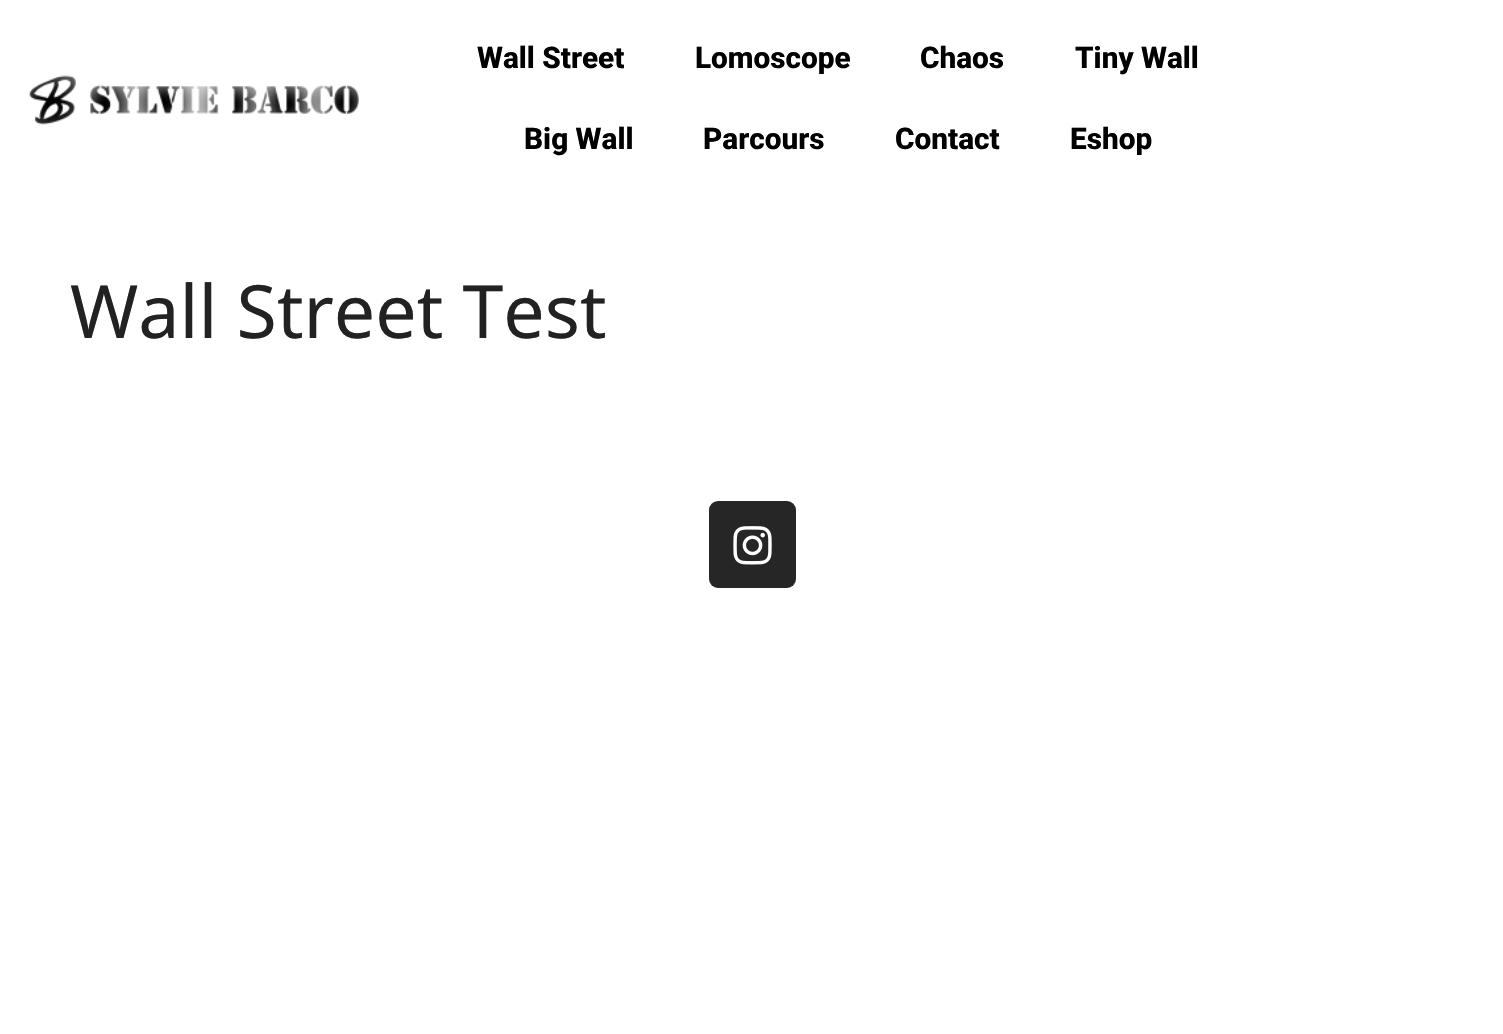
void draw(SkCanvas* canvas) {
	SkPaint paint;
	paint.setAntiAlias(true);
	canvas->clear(0xffffffff);
	canvas->drawImageRect(SkImages::DeferredFromEncodedData(SkData::MakeFromFileName("img1.png")), SkRect::MakeXYWH(29, 75, 330, 50), SkSamplingOptions());
	SkFont f1(fontMgr->matchFamilyStyle("Roboto", SkFontStyle(800, SkFontStyle::kNormal_Width, SkFontStyle::kUpright_Slant)), 29.75);
	f1.setSubpixel(true);
	paint.setColor(0xff000000);
	canvas->drawString("Wall Street", 477, 68, f1, paint);
	canvas->drawString("Lomoscope", 695, 68, f1, paint);
	canvas->drawString("Chaos", 920, 68, f1, paint);
	canvas->drawString("Tiny Wall", 1075, 68, f1, paint);
	canvas->drawString("Big Wall", 524, 149, f1, paint);
	canvas->drawString("Parcours", 703, 149, f1, paint);
	canvas->drawString("Contact", 895, 149, f1, paint);
	canvas->drawString("Eshop", 1070, 149, f1, paint);
	SkFont f2(fontMgr->matchFamilyStyle("Noto Sans", SkFontStyle::Normal()), 73.5);
	f2.setSubpixel(true);
	paint.setColor(0xff222222);
	canvas->drawString("Wall Street Test", 70, 338, f2, paint);
	paint.setColor(0xff262626);
	canvas->drawRoundRect(SkRect::MakeXYWH(709, 501, 87, 87), 9, 9, paint);
	canvas->drawImageRect(SkImages::DeferredFromEncodedData(SkData::MakeFromFileName("img2.png")), SkRect::MakeXYWH(733, 526, 39, 39), SkSamplingOptions());
}
